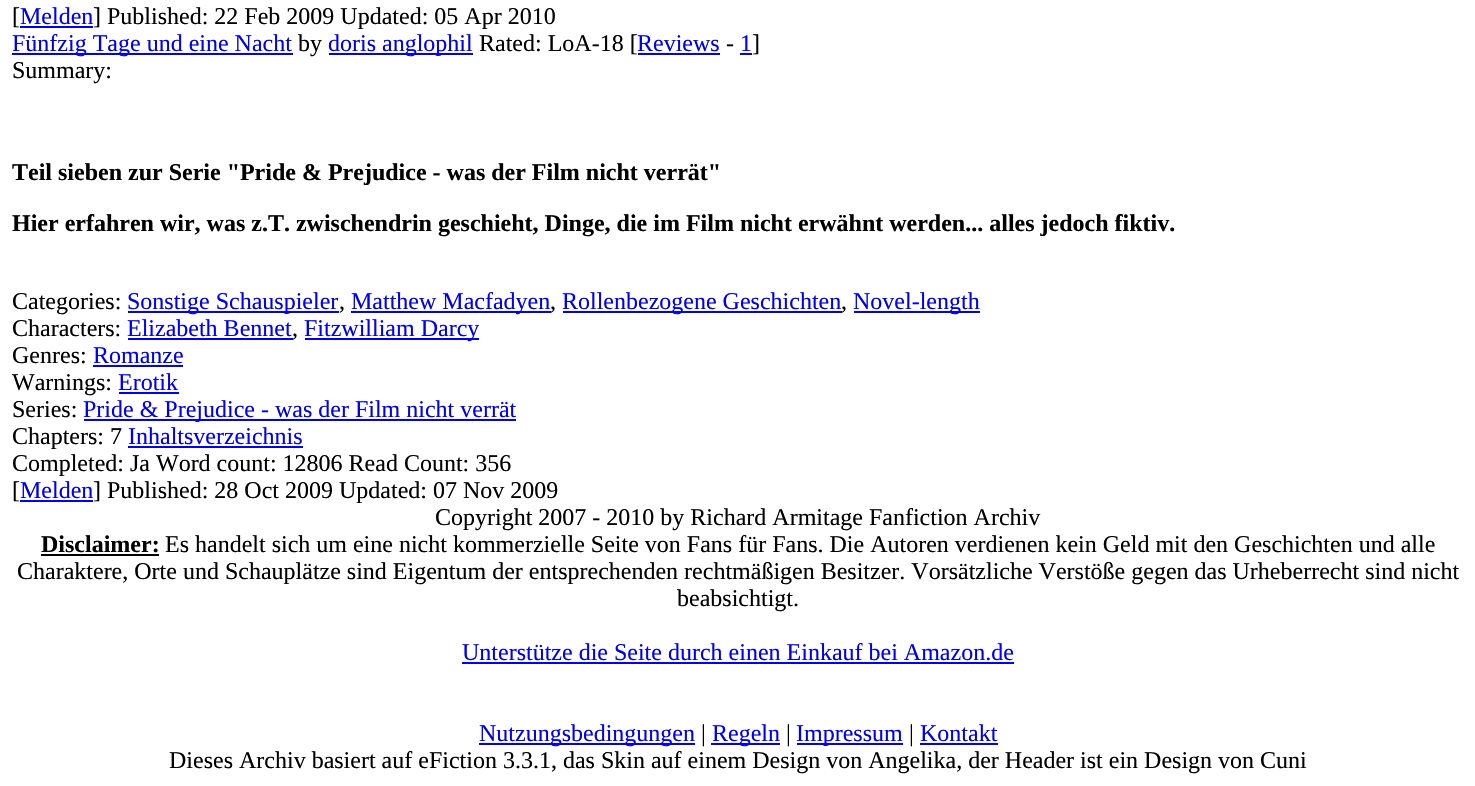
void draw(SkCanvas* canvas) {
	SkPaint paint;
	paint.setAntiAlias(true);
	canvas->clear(0xffffffff);
	SkFont f1(fontMgr->matchFamilyStyle("Liberation Serif", SkFontStyle::Normal()), 24);
	f1.setSubpixel(true);
	paint.setColor(0xff000000);
	canvas->drawString("[", 12, 24, f1, paint);
	paint.setColor(0xff0000ee);
	canvas->drawString("Melden", 20, 24, f1, paint);
	paint.setColor(0xff000000);
	canvas->drawString("] Published: 22 Feb 2009 Updated: 05 Apr 2010", 93, 24, f1, paint);
	paint.setColor(0xff0000ee);
	canvas->drawRect(SkRect::MakeXYWH(20, 26, 73, 2), paint);
	canvas->drawRect(SkRect::MakeXYWH(12, 53, 281, 2), paint);
	canvas->drawString("Fünfzig Tage und eine Nacht", 12, 51, f1, paint);
	paint.setColor(0xff000000);
	canvas->drawString("by", 298, 51, f1, paint);
	paint.setColor(0xff0000ee);
	canvas->drawRect(SkRect::MakeXYWH(329, 53, 144, 2), paint);
	canvas->drawString("doris anglophil", 328, 51, f1, paint);
	paint.setColor(0xff000000);
	canvas->drawString("Rated: LoA-18 [", 479, 51, f1, paint);
	paint.setColor(0xff0000ee);
	canvas->drawString("Reviews", 637, 51, f1, paint);
	canvas->drawRect(SkRect::MakeXYWH(638, 53, 82, 2), paint);
	paint.setColor(0xff000000);
	canvas->drawString("-", 726, 51, f1, paint);
	paint.setColor(0xff0000ee);
	canvas->drawString("1", 740, 51, f1, paint);
	canvas->drawRect(SkRect::MakeXYWH(740, 53, 12, 2), paint);
	paint.setColor(0xff000000);
	canvas->drawString("]", 752, 51, f1, paint);
	canvas->drawString("Summary:", 12, 78, f1, paint);
	SkFont f2(fontMgr->matchFamilyStyle("Liberation Serif", SkFontStyle::Bold()), 24);
	f2.setSubpixel(true);
	canvas->drawString("Teil sieben zur Serie \"Pride & Prejudice - was der Film nicht verrät\"", 12, 180, f2, paint);
	canvas->drawString("Hier erfahren wir, was z.T. zwischendrin geschieht, Dinge, die im Film nicht erwähnt werden... alles jedoch fiktiv.", 12, 231, f2, paint);
	canvas->drawString("Categories:", 12, 309, f1, paint);
	paint.setColor(0xff0000ee);
	canvas->drawRect(SkRect::MakeXYWH(128, 311, 211, 2), paint);
	canvas->drawString("Sonstige Schauspieler", 127, 309, f1, paint);
	paint.setColor(0xff000000);
	canvas->drawString(",", 339, 309, f1, paint);
	paint.setColor(0xff0000ee);
	canvas->drawRect(SkRect::MakeXYWH(351, 311, 200, 2), paint);
	canvas->drawString("Matthew Macfadyen", 351, 309, f1, paint);
	paint.setColor(0xff000000);
	canvas->drawString(",", 550, 309, f1, paint);
	paint.setColor(0xff0000ee);
	canvas->drawRect(SkRect::MakeXYWH(563, 311, 279, 2), paint);
	canvas->drawString("Rollenbezogene Geschichten", 562, 309, f1, paint);
	paint.setColor(0xff000000);
	canvas->drawString(",", 841, 309, f1, paint);
	paint.setColor(0xff0000ee);
	canvas->drawRect(SkRect::MakeXYWH(854, 311, 126, 2), paint);
	canvas->drawString("Novel-length", 853, 309, f1, paint);
	paint.setColor(0xff000000);
	canvas->drawString("Characters:", 12, 336, f1, paint);
	paint.setColor(0xff0000ee);
	canvas->drawString("Elizabeth Bennet", 127, 336, f1, paint);
	canvas->drawRect(SkRect::MakeXYWH(128, 338, 165, 2), paint);
	paint.setColor(0xff000000);
	canvas->drawString(",", 292, 336, f1, paint);
	paint.setColor(0xff0000ee);
	canvas->drawRect(SkRect::MakeXYWH(305, 338, 174, 2), paint);
	canvas->drawString("Fitzwilliam Darcy", 304, 336, f1, paint);
	paint.setColor(0xff000000);
	canvas->drawString("Genres:", 12, 363, f1, paint);
	paint.setColor(0xff0000ee);
	canvas->drawString("Romanze", 93, 363, f1, paint);
	canvas->drawRect(SkRect::MakeXYWH(93, 365, 90, 2), paint);
	paint.setColor(0xff000000);
	canvas->drawString("Warnings:", 12, 390, f1, paint);
	paint.setColor(0xff0000ee);
	canvas->drawString("Erotik", 118, 390, f1, paint);
	canvas->drawRect(SkRect::MakeXYWH(119, 392, 60, 2), paint);
	paint.setColor(0xff000000);
	canvas->drawString("Series:", 12, 417, f1, paint);
	paint.setColor(0xff0000ee);
	canvas->drawRect(SkRect::MakeXYWH(84, 419, 432, 2), paint);
	canvas->drawString("Pride & Prejudice - was der Film nicht verrät", 83, 417, f1, paint);
	paint.setColor(0xff000000);
	canvas->drawString("Chapters: 7", 12, 444, f1, paint);
	paint.setColor(0xff0000ee);
	canvas->drawString("Inhaltsverzeichnis", 128, 444, f1, paint);
	canvas->drawRect(SkRect::MakeXYWH(128, 446, 175, 2), paint);
	paint.setColor(0xff000000);
	canvas->drawString("Completed: Ja Word count: 12806 Read Count: 356", 12, 471, f1, paint);
	canvas->drawString("[", 12, 498, f1, paint);
	paint.setColor(0xff0000ee);
	canvas->drawString("Melden", 20, 498, f1, paint);
	paint.setColor(0xff000000);
	canvas->drawString("] Published: 28 Oct 2009 Updated: 07 Nov 2009", 93, 498, f1, paint);
	paint.setColor(0xff0000ee);
	canvas->drawRect(SkRect::MakeXYWH(20, 500, 73, 2), paint);
	paint.setColor(0xff000000);
	canvas->drawString("Copyright 2007 - 2010 by Richard Armitage Fanfiction Archiv", 435, 525, f1, paint);
	canvas->drawString("Disclaimer:", 41, 552, f2, paint);
	canvas->drawRect(SkRect::MakeXYWH(41, 554, 118, 2), paint);
	canvas->drawString("Es handelt sich um eine nicht kommerzielle Seite von Fans für Fans. Die Autoren verdienen kein Geld mit den Geschichten und alle", 165, 552, f1, paint);
	canvas->drawString("Charaktere, Orte und Schauplätze sind Eigentum der entsprechenden rechtmäßigen Besitzer. Vorsätzliche Verstöße gegen das Urheberrecht sind nicht", 17, 579, f1, paint);
	canvas->drawString("beabsichtigt.", 677, 606, f1, paint);
	paint.setColor(0xff0000ee);
	canvas->drawString("Unterstütze die Seite durch einen Einkauf bei Amazon.de", 462, 660, f1, paint);
	canvas->drawRect(SkRect::MakeXYWH(462, 662, 552, 2), paint);
	canvas->drawRect(SkRect::MakeXYWH(479, 743, 216, 2), paint);
	canvas->drawString("Nutzungsbedingungen", 479, 741, f1, paint);
	paint.setColor(0xff000000);
	canvas->drawString("|", 701, 741, f1, paint);
	paint.setColor(0xff0000ee);
	canvas->drawRect(SkRect::MakeXYWH(711, 743, 69, 2), paint);
	canvas->drawString("Regeln", 712, 741, f1, paint);
	paint.setColor(0xff000000);
	canvas->drawString("|", 786, 741, f1, paint);
	paint.setColor(0xff0000ee);
	canvas->drawRect(SkRect::MakeXYWH(797, 743, 106, 2), paint);
	canvas->drawString("Impressum", 796, 741, f1, paint);
	paint.setColor(0xff000000);
	canvas->drawString("|", 909, 741, f1, paint);
	paint.setColor(0xff0000ee);
	canvas->drawString("Kontakt", 920, 741, f1, paint);
	canvas->drawRect(SkRect::MakeXYWH(920, 743, 78, 2), paint);
	paint.setColor(0xff000000);
	canvas->drawString("Dieses Archiv basiert auf eFiction 3.3.1, das Skin auf einem Design von Angelika, der Header ist ein Design von Cuni", 169, 768, f1, paint);
}
